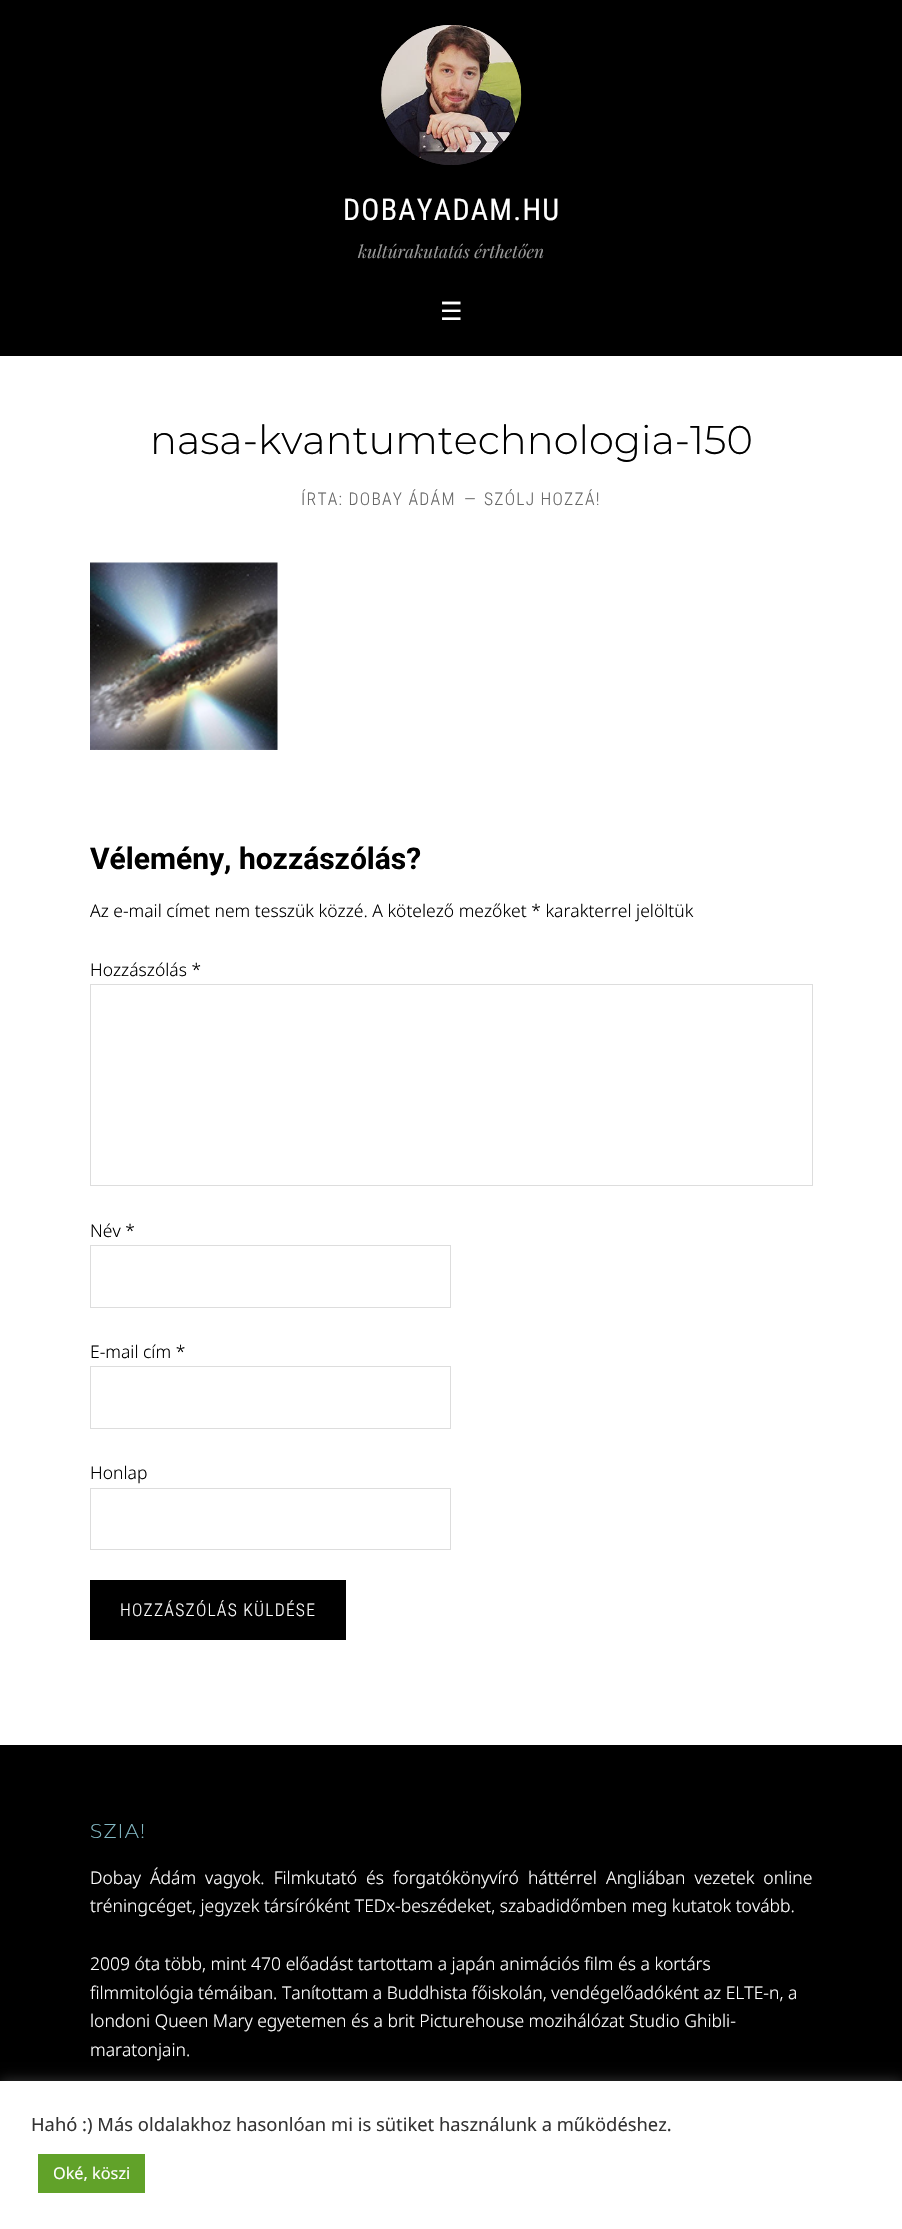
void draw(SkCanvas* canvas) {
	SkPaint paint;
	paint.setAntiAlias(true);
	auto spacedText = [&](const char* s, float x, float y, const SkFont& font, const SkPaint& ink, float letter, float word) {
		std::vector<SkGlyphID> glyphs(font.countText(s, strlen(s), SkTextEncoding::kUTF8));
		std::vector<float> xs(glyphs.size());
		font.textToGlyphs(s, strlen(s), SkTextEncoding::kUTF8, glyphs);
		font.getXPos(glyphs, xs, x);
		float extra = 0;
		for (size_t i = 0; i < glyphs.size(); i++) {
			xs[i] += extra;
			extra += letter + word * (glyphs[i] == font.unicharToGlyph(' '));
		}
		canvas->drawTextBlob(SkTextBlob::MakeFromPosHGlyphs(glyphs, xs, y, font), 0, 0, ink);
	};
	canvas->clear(0xff000000);
	canvas->drawImageRect(SkImages::DeferredFromEncodedData(SkData::MakeFromFileName("img1.png")), SkRect::MakeXYWH(381, 25, 141, 140), SkSamplingOptions());
	canvas->drawImageRect(SkImages::DeferredFromEncodedData(SkData::MakeFromFileName("img2.png")), SkRect::MakeXYWH(381, 25, 141, 140), SkSamplingOptions());
	SkFont f1(fontMgr->matchFamilyStyle("Roboto Condensed", SkFontStyle::Normal()), 30);
	f1.setSubpixel(true);
	paint.setColor(0xffffffff);
	spacedText("DOBAYADAM.HU", 343, 220, f1, paint, 1.25, 0);
	SkFont f2(fontMgr->matchFamilyStyle("Playfair Display", SkFontStyle::Italic()), 17.5);
	f2.setSubpixel(true);
	paint.setColor(0xff999999);
	canvas->drawString("kultúrakutatás érthetően", 358, 258, f2, paint);
	SkFont f3(fontMgr->matchFamilyStyle("DejaVu Sans", SkFontStyle::Normal()), 25);
	f3.setSubpixel(true);
	paint.setColor(0xffffffff);
	canvas->drawString("☰", 440, 320, f3, paint);
	canvas->drawRect(SkRect::MakeXYWH(0, 356, 902, 1389), paint);
	SkFont f4(fontMgr->matchFamilyStyle("Montserrat", SkFontStyle(300, SkFontStyle::kNormal_Width, SkFontStyle::kUpright_Slant)), 40);
	f4.setSubpixel(true);
	paint.setColor(0xff000000);
	canvas->drawString("nasa-kvantumtechnologia-150", 150, 454, f4, paint);
	SkFont f5(fontMgr->matchFamilyStyle("Roboto Condensed", SkFontStyle(300, SkFontStyle::kNormal_Width, SkFontStyle::kUpright_Slant)), 17.5);
	f5.setSubpixel(true);
	paint.setColor(0xff666666);
	spacedText("ÍRTA: DOBAY ÁDÁM", 301, 505, f5, paint, 1.25, 0);
	spacedText("—", 464, 505, f5, paint, 1.25, 0);
	spacedText("SZÓLJ HOZZÁ!", 484, 505, f5, paint, 1.25, 0);
	canvas->drawImageRect(SkImages::DeferredFromEncodedData(SkData::MakeFromFileName("img3.png")), SkRect::MakeXYWH(90, 562, 188, 188), SkSamplingOptions());
	SkFont f6(fontMgr->matchFamilyStyle("Roboto", SkFontStyle::Bold()), 30);
	f6.setSubpixel(true);
	paint.setColor(0xff000000);
	canvas->drawString("Vélemény, hozzászólás?", 90, 869, f6, paint);
	SkFont f7(fontMgr->matchFamilyStyle("Noto Sans", SkFontStyle(300, SkFontStyle::kNormal_Width, SkFontStyle::kUpright_Slant)), 17.5);
	f7.setSubpixel(true);
	canvas->drawString("Az e-mail címet nem tesszük közzé. A kötelező mezőket * karakterrel jelöltük", 90, 917, f7, paint);
	canvas->drawString("Hozzászólás *", 90, 976, f7, paint);
	paint.setStroke(true);
	paint.setStrokeWidth(1);
	paint.setColor(0xffdddddd);
	canvas->drawRect(SkRect::MakeXYWH(90.5, 984.5, 722, 201), paint);
	paint.setStroke(false);
	paint.setColor(0xff000000);
	canvas->drawString("Név *", 90, 1237, f7, paint);
	paint.setStroke(true);
	paint.setColor(0xffdddddd);
	canvas->drawRect(SkRect::MakeXYWH(90.5, 1245.5, 360, 62), paint);
	paint.setStroke(false);
	paint.setColor(0xff000000);
	canvas->drawString("E-mail cím *", 90, 1358, f7, paint);
	paint.setStroke(true);
	paint.setColor(0xffdddddd);
	canvas->drawRect(SkRect::MakeXYWH(90.5, 1366.5, 360, 62), paint);
	paint.setStroke(false);
	paint.setColor(0xff000000);
	canvas->drawString("Honlap", 90, 1479, f7, paint);
	paint.setStroke(true);
	paint.setColor(0xffdddddd);
	canvas->drawRect(SkRect::MakeXYWH(90.5, 1488.5, 360, 61), paint);
	paint.setStroke(false);
	paint.setColor(0xff000000);
	canvas->drawRect(SkRect::MakeXYWH(90, 1580, 256, 60), paint);
	paint.setColor(0xffffffff);
	spacedText("HOZZÁSZÓLÁS KÜLDÉSE", 120, 1616, f5, paint, 1.25, 0);
	SkFont f8(fontMgr->matchFamilyStyle("Montserrat", SkFontStyle(300, SkFontStyle::kNormal_Width, SkFontStyle::kUpright_Slant)), 20);
	f8.setSubpixel(true);
	paint.setColor(0xff83b8c3);
	spacedText("SZIA!", 90, 1838, f8, paint, 1.25, 0);
	paint.setColor(0xffffffff);
	spacedText("Dobay Ádám vagyok. Filmkutató és forgatókönyvíró háttérrel", 90, 1884, f7, paint, 0, 4.5);
	spacedText("Angliában vezetek online", 606, 1884, f7, paint, 0, 4.5);
	canvas->drawString("tréningcéget, jegyzek társíróként TEDx-beszédeket, szabadidőmben meg kutatok tovább.", 90, 1912, f7, paint);
	canvas->drawString("2009 óta több, mint 470 előadást tartottam a japán animációs film és a kortárs", 90, 1970, f7, paint);
	canvas->drawString("filmmitológia témáiban. Tanítottam a Buddhista főiskolán, vendégelőadóként az ELTE-n, a", 90, 1999, f7, paint);
	canvas->drawString("londoni Queen Mary egyetemen és a brit Picturehouse mozihálózat Studio Ghibli-", 90, 2027, f7, paint);
	canvas->drawString("maratonjain.", 90, 2056, f7, paint);
	paint.setColor(0x4dacabab);
	paint.setMaskFilter(SkMaskFilter::MakeBlur(kNormal_SkBlurStyle, 6));
	canvas->drawRect(SkRect::MakeXYWH(0, 2080, 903, 149), paint);
	paint.setMaskFilter(nullptr);
	paint.setColor(0xffffffff);
	canvas->drawRect(SkRect::MakeXYWH(0, 2081, 902, 148), paint);
	SkFont f9(fontMgr->matchFamilyStyle("Noto Sans", SkFontStyle::Normal()), 18.35);
	f9.setSubpixel(true);
	paint.setColor(0xff333333);
	canvas->drawString("Hahó :) Más oldalakhoz hasonlóan mi is sütiket használunk a működéshez.", 31, 2131, f9, paint);
	paint.setColor(0xff61a229);
	canvas->drawRect(SkRect::MakeXYWH(38, 2154, 107, 39), paint);
	SkFont f10(fontMgr->matchFamilyStyle("Noto Sans", SkFontStyle::Normal()), 16.25);
	f10.setSubpixel(true);
	paint.setColor(0xffffffff);
	canvas->drawString("Oké, köszi", 53, 2179, f10, paint);
}
